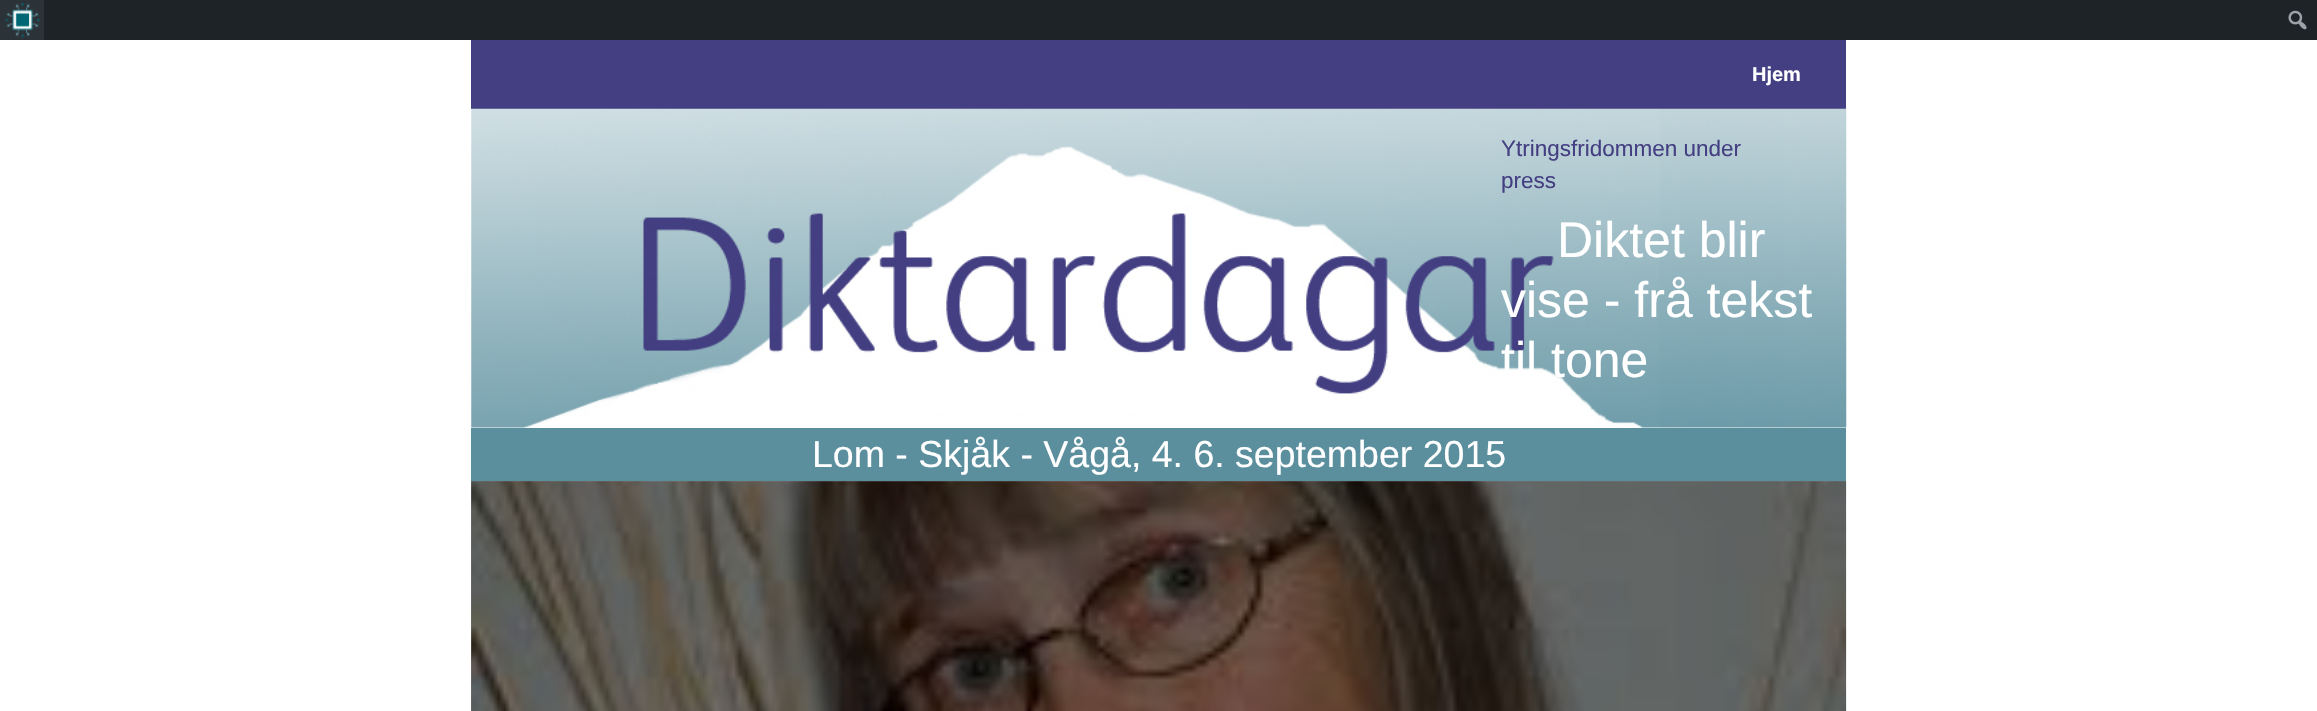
void draw(SkCanvas* canvas) {
	SkPaint paint;
	paint.setAntiAlias(true);
	canvas->clear(0xffffffff);
	paint.setColor(0xff858080);
	canvas->drawRect(SkRect::MakeXYWH(471, 481, 1375, 230), paint);
	paint.setColor(0xff1d2327);
	canvas->drawRect(SkRect::MakeXYWH(44, 0, 2273, 40), paint);
	paint.setColor(0xff2c3338);
	canvas->drawRect(SkRect::MakeXYWH(0, 0, 44, 40), paint);
	canvas->drawImageRect(SkImages::DeferredFromEncodedData(SkData::MakeFromFileName("img1.png")), SkRect::MakeXYWH(5, 2, 35, 36), SkSamplingOptions());
	canvas->drawImageRect(SkImages::DeferredFromEncodedData(SkData::MakeFromFileName("img2.png")), SkRect::MakeXYWH(2288, 10, 19, 20), SkSamplingOptions());
	paint.setColor(0xff443f82);
	canvas->drawRect(SkRect::MakeXYWH(471, 40, 1375, 69), paint);
	SkFont f1(fontMgr->matchFamilyStyle("Liberation Sans", SkFontStyle::Bold()), 20);
	f1.setSubpixel(true);
	paint.setColor(0xffffffff);
	canvas->drawString("Hjem", 1752, 81, f1, paint);
	canvas->drawImageRect(SkImages::DeferredFromEncodedData(SkData::MakeFromFileName("img3.png")), SkRect::MakeXYWH(471, 108, 1376, 320), SkSamplingOptions());
	SkFont f2(fontMgr->matchFamilyStyle("Liberation Sans", SkFontStyle::Normal()), 22.5);
	f2.setSubpixel(true);
	paint.setColor(0xff443f82);
	canvas->drawString("Ytringsfridommen under", 1501, 156, f2, paint);
	canvas->drawString("press", 1501, 188, f2, paint);
	SkFont f3(fontMgr->matchFamilyStyle("Liberation Sans", SkFontStyle::Normal()), 50);
	f3.setSubpixel(true);
	paint.setColor(0xffffffff);
	canvas->drawString("Diktet blir", 1557, 257, f3, paint);
	canvas->drawString("vise - frå tekst", 1501, 317, f3, paint);
	canvas->drawString("til tone", 1501, 377, f3, paint);
	paint.setColor(0xff5b8f9e);
	canvas->drawRect(SkRect::MakeXYWH(471, 428, 1375, 53), paint);
	SkFont f4(fontMgr->matchFamilyStyle("Liberation Sans", SkFontStyle::Normal()), 37.5);
	f4.setSubpixel(true);
	paint.setColor(0xffffffff);
	canvas->drawString("Lom - Skjåk - Vågå, 4. 6. september 2015", 812, 467, f4, paint);
	canvas->drawImageRect(SkImages::DeferredFromEncodedData(SkData::MakeFromFileName("img4.png")), SkRect::MakeXYWH(471, 481, 1376, 230), SkSamplingOptions());
}
